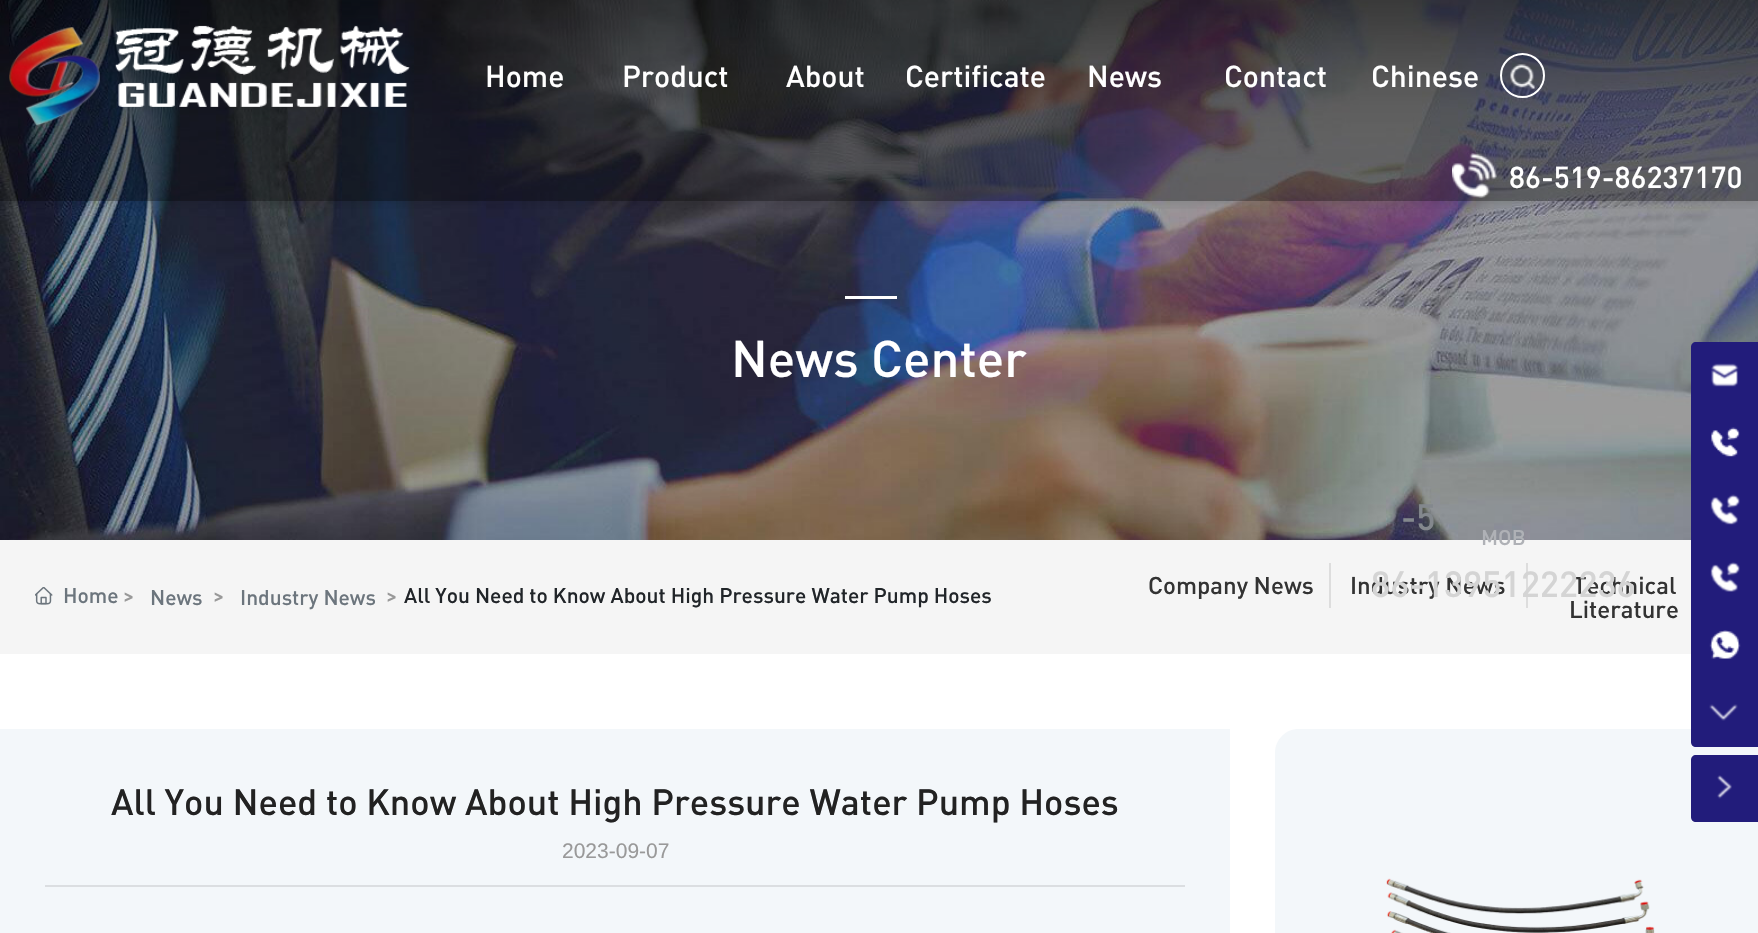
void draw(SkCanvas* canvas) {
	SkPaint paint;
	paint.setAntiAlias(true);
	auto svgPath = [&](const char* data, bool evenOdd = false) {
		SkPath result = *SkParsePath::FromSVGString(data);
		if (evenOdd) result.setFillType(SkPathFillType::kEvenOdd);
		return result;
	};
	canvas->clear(0xffffffff);
	canvas->drawImageRect(SkImages::DeferredFromEncodedData(SkData::MakeFromFileName("img4.png")), SkRect::MakeXYWH(0, 0, 1758, 540), SkSamplingOptions());
	canvas->save();
	canvas->clipRect(SkRect::MakeXYWH(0, 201, 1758, 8));
	paint.setColor(0x1c000000);
	paint.setMaskFilter(SkMaskFilter::MakeBlur(kNormal_SkBlurStyle, 5));
	canvas->drawRect(SkRect::MakeXYWH(0, 3, 1758, 201), paint);
	paint.setMaskFilter(nullptr);
	canvas->restore();
	paint.setColor(0x5c000000);
	canvas->drawRect(SkRect::MakeXYWH(0, 0, 1758, 201), paint);
	canvas->drawImageRect(SkImages::DeferredFromEncodedData(SkData::MakeFromFileName("img1.png")), SkRect::MakeXYWH(9, 25, 401, 101), SkSamplingOptions());
	SkFont f1(fontMgr->matchFamilyStyle("DIN", SkFontStyle(500, SkFontStyle::kNormal_Width, SkFontStyle::kUpright_Slant)), 30);
	f1.setSubpixel(true);
	paint.setColor(0xffffffff);
	canvas->drawString("Home", 485, 87, f1, paint);
	canvas->drawString("Product", 622, 87, f1, paint);
	canvas->drawString("About", 786, 87, f1, paint);
	canvas->drawString("Certificate", 905, 87, f1, paint);
	canvas->drawString("News", 1087, 87, f1, paint);
	canvas->drawString("Contact", 1224, 87, f1, paint);
	canvas->drawString("Chinese", 1371, 87, f1, paint);
	paint.setStroke(true);
	paint.setStrokeWidth(2);
	canvas->drawCircle(1522.5, 75.5, 21.5, paint);
	canvas->drawImageRect(SkImages::DeferredFromEncodedData(SkData::MakeFromFileName("img2.png")), SkRect::MakeXYWH(1510, 64, 25, 25), SkSamplingOptions());
	canvas->drawImageRect(SkImages::DeferredFromEncodedData(SkData::MakeFromFileName("img3.png")), SkRect::MakeXYWH(1452, 153, 45, 45), SkSamplingOptions());
	paint.setStroke(false);
	canvas->drawString("86-519-86237170", 1509, 188, f1, paint);
	canvas->drawRect(SkRect::MakeXYWH(845, 296, 52, 3), paint);
	SkFont f2(fontMgr->matchFamilyStyle("DIN", SkFontStyle(500, SkFontStyle::kNormal_Width, SkFontStyle::kUpright_Slant)), 51);
	f2.setSubpixel(true);
	canvas->drawString("News Center", 731, 377, f2, paint);
	paint.setColor(0xfff5f5f5);
	canvas->drawRect(SkRect::MakeXYWH(0, 540, 1691, 114), paint);
	canvas->drawImageRect(SkImages::DeferredFromEncodedData(SkData::MakeFromFileName("img5.png")), SkRect::MakeXYWH(35, 587, 18, 18), SkSamplingOptions());
	SkFont f3(fontMgr->matchFamilyStyle("DIN", SkFontStyle(500, SkFontStyle::kNormal_Width, SkFontStyle::kUpright_Slant)), 21);
	f3.setSubpixel(true);
	paint.setColor(0xff6c757d);
	canvas->drawString("Home", 63, 603, f3, paint);
	paint.setColor(0xff999999);
	canvas->drawString(">", 123, 603, f3, paint);
	paint.setColor(0xff6c757d);
	canvas->drawString("News", 150, 605, f3, paint);
	paint.setColor(0xff999999);
	canvas->drawString(">", 213, 603, f3, paint);
	paint.setColor(0xff6c757d);
	canvas->drawString("Industry News", 240, 605, f3, paint);
	paint.setColor(0xff999999);
	canvas->drawString(">", 386, 603, f3, paint);
	paint.setColor(0xff212529);
	canvas->drawString("All You Need to Know About High Pressure Water Pump Hoses", 404, 603, f3, paint);
	SkFont f4(fontMgr->matchFamilyStyle("DIN", SkFontStyle(500, SkFontStyle::kNormal_Width, SkFontStyle::kUpright_Slant)), 24);
	f4.setSubpixel(true);
	paint.setColor(0xff333333);
	canvas->drawString("Company News", 1148, 594, f4, paint);
	paint.setColor(0xffdddddd);
	canvas->drawRect(SkRect::MakeXYWH(1329, 563, 2, 45), paint);
	paint.setColor(0xff333333);
	canvas->drawString("Industry News", 1350, 594, f4, paint);
	paint.setColor(0xffdddddd);
	canvas->drawRect(SkRect::MakeXYWH(1526, 563, 2, 45), paint);
	paint.setColor(0xff333333);
	canvas->drawString("Technical", 1573, 594, f4, paint);
	canvas->drawString("Literature", 1569, 618, f4, paint);
	paint.setColor(0xfff3f7fa);
	canvas->drawPath(svgPath("M1299 729H1734C1747.5 729 1758 739.5 1758 753V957H1275V753C1275 739.5 1285.5 729 1299 729Z"), paint);
	paint.setColor(0xff221c7b);
	canvas->drawPath(svgPath("M1696 342H1758V747H1696C1693 747 1691 745 1691 742V347C1691 344 1693 342 1696 342Z"), paint);
	canvas->drawImageRect(SkImages::DeferredFromEncodedData(SkData::MakeFromFileName("img6.png")), SkRect::MakeXYWH(1711, 363, 28, 24), SkSamplingOptions());
	canvas->drawImageRect(SkImages::DeferredFromEncodedData(SkData::MakeFromFileName("img7.png")), SkRect::MakeXYWH(1711, 427, 29, 30), SkSamplingOptions());
	SkFont f5(fontMgr->matchFamilyStyle("DIN", SkFontStyle(500, SkFontStyle::kNormal_Width, SkFontStyle::kUpright_Slant)), 36);
	f5.setSubpixel(true);
	paint.setColor(0xff83888d);
	canvas->drawString("-5", 1401, 530, f5, paint);
	canvas->drawImageRect(SkImages::DeferredFromEncodedData(SkData::MakeFromFileName("img8.png")), SkRect::MakeXYWH(1710, 494, 30, 31), SkSamplingOptions());
	paint.setColor(0xffafb1b6);
	canvas->drawString("MOB", 1481, 545, f3, paint);
	paint.setColor(0xffd4d4d4);
	canvas->drawString("86-13951222236", 1371, 597, f5, paint);
	canvas->drawImageRect(SkImages::DeferredFromEncodedData(SkData::MakeFromFileName("img9.png")), SkRect::MakeXYWH(1710, 562, 30, 30), SkSamplingOptions());
	canvas->drawImageRect(SkImages::DeferredFromEncodedData(SkData::MakeFromFileName("img10.png")), SkRect::MakeXYWH(1709, 630, 32, 29), SkSamplingOptions());
	canvas->drawImageRect(SkImages::DeferredFromEncodedData(SkData::MakeFromFileName("img11.png")), SkRect::MakeXYWH(1709, 704, 29, 17), SkSamplingOptions());
	paint.setColor(0xff221c7b);
	canvas->drawPath(svgPath("M1696 755H1758V822H1696C1693 822 1691 820 1691 817V760C1691 757 1693 755 1696 755Z"), paint);
	canvas->drawImageRect(SkImages::DeferredFromEncodedData(SkData::MakeFromFileName("img12.png")), SkRect::MakeXYWH(1717, 775, 15, 24), SkSamplingOptions());
	paint.setColor(0xfff3f7fa);
	canvas->drawRect(SkRect::MakeXYWH(0, 729, 1230, 204), paint);
	paint.setColor(0xff222222);
	canvas->drawString("All You Need to Know About High Pressure Water Pump Hoses", 111, 815, f5, paint);
	SkFont f6(fontMgr->matchFamilyStyle("Liberation Sans", SkFontStyle::Normal()), 21);
	f6.setSubpixel(true);
	paint.setColor(0xff999999);
	canvas->drawString("2023-09-07", 562, 858, f6, paint);
	paint.setColor(0xffdbdee1);
	canvas->drawRect(SkRect::MakeXYWH(45, 885, 1140, 2), paint);
	canvas->drawImageRect(SkImages::DeferredFromEncodedData(SkData::MakeFromFileName("img13.png")), SkRect::MakeXYWH(1386, 878, 269, 55), SkSamplingOptions());
}
